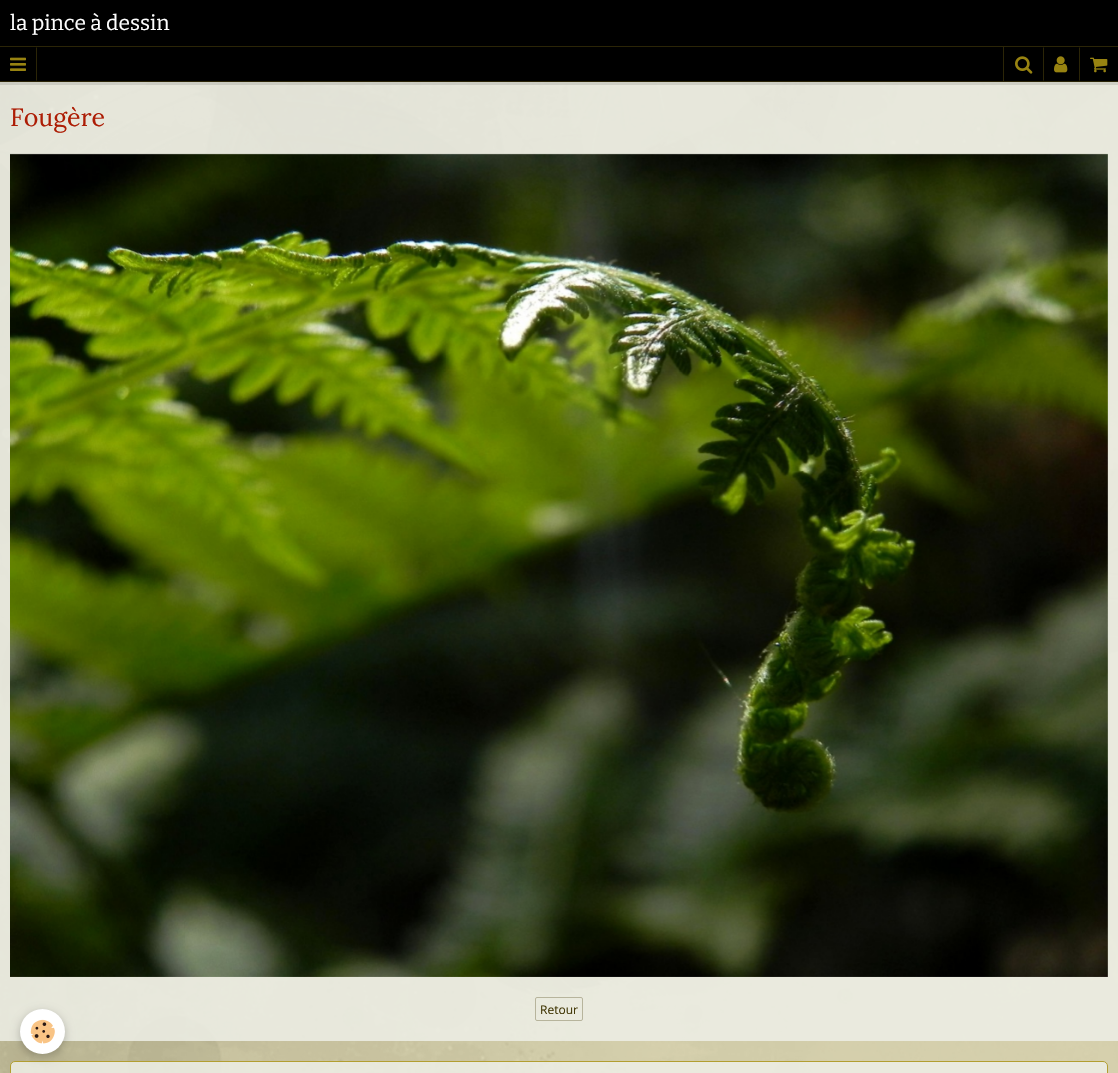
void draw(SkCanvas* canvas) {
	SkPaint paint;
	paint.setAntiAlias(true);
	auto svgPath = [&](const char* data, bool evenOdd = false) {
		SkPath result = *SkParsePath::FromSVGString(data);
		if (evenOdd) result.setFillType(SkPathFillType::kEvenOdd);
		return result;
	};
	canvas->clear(0xffffffff);
	canvas->drawImageRect(SkImages::DeferredFromEncodedData(SkData::MakeFromFileName("img1.png")), SkRect::MakeXYWH(0, 82, 1118, 991), SkSamplingOptions());
	paint.setColor(0xd9edefe6);
	canvas->drawRect(SkRect::MakeXYWH(0, 82, 1118, 959), paint);
	paint.setColor(0x1a000000);
	canvas->drawRect(SkRect::MakeXYWH(0, 82, 1118, 3), paint);
	paint.setColor(0xff000000);
	canvas->drawRect(SkRect::MakeXYWH(0, 0, 1118, 81), paint);
	SkFont f1(fontMgr->matchFamilyStyle("Bitter", SkFontStyle::Normal()), 21);
	f1.setSubpixel(true);
	paint.setColor(0xffffffff);
	canvas->drawString("la pince à dessin", 10, 30, f1, paint);
	paint.setColor(0xff2b2507);
	canvas->drawRect(SkRect::MakeXYWH(0, 46, 1118, 1), paint);
	canvas->drawRect(SkRect::MakeXYWH(0, 81, 1118, 1), paint);
	canvas->drawPath(svgPath("M37 47V81L36 80V48Z"), paint);
	canvas->drawImageRect(SkImages::DeferredFromEncodedData(SkData::MakeFromFileName("img2.png")), SkRect::MakeXYWH(10, 57, 16, 14), SkSamplingOptions());
	canvas->drawRect(SkRect::MakeXYWH(1003, 47, 1, 34), paint);
	canvas->drawImageRect(SkImages::DeferredFromEncodedData(SkData::MakeFromFileName("img3.png")), SkRect::MakeXYWH(1015, 56, 18, 18), SkSamplingOptions());
	canvas->drawPath(svgPath("M1043 81V47L1044 48V80Z"), paint);
	canvas->drawImageRect(SkImages::DeferredFromEncodedData(SkData::MakeFromFileName("img4.png")), SkRect::MakeXYWH(1054, 56, 14, 17), SkSamplingOptions());
	canvas->drawPath(svgPath("M1079 81V47L1080 48V80Z"), paint);
	canvas->drawImageRect(SkImages::DeferredFromEncodedData(SkData::MakeFromFileName("img5.png")), SkRect::MakeXYWH(1090, 57, 18, 16), SkSamplingOptions());
	SkFont f2(fontMgr->matchFamilyStyle("Lora", SkFontStyle::Normal()), 25);
	f2.setSubpixel(true);
	paint.setColor(0xffad1d05);
	canvas->drawString("Fougère", 10, 126, f2, paint);
	canvas->drawImageRect(SkImages::DeferredFromEncodedData(SkData::MakeFromFileName("img6.png")), SkRect::MakeXYWH(10, 153, 1098, 824), SkSamplingOptions());
	paint.setStroke(true);
	paint.setStrokeWidth(1);
	paint.setColor(0xffb7b49c);
	canvas->drawRoundRect(SkRect::MakeXYWH(535.5, 997.5, 47, 23), 1.5, 1.5, paint);
	SkFont f3(fontMgr->matchFamilyStyle("Open Sans", SkFontStyle::Normal()), 12);
	f3.setSubpixel(true);
	paint.setStroke(false);
	paint.setColor(0xff423806);
	canvas->drawString("Retour", 540, 1014, f3, paint);
	paint.setColor(0xd9edefe6);
	canvas->drawRoundRect(SkRect::MakeXYWH(10.5, 1061.5, 1097, 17), 4.5, 4.5, paint);
	paint.setStroke(true);
	paint.setColor(0xffb29e31);
	canvas->drawRoundRect(SkRect::MakeXYWH(10.5, 1061.5, 1097, 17), 4.5, 4.5, paint);
	paint.setStroke(false);
	paint.setColor(0x3d000000);
	paint.setMaskFilter(SkMaskFilter::MakeBlur(kNormal_SkBlurStyle, 5));
	canvas->drawRoundRect(SkRect::MakeXYWH(20, 1012, 45, 45), 22.5, 22.5, paint);
	paint.setMaskFilter(nullptr);
	paint.setColor(0xffffffff);
	canvas->drawCircle(42.5, 1031.5, 22.5, paint);
	canvas->drawImageRect(SkImages::DeferredFromEncodedData(SkData::MakeFromFileName("img7.png")), SkRect::MakeXYWH(30, 1019, 25, 25), SkSamplingOptions());
}
